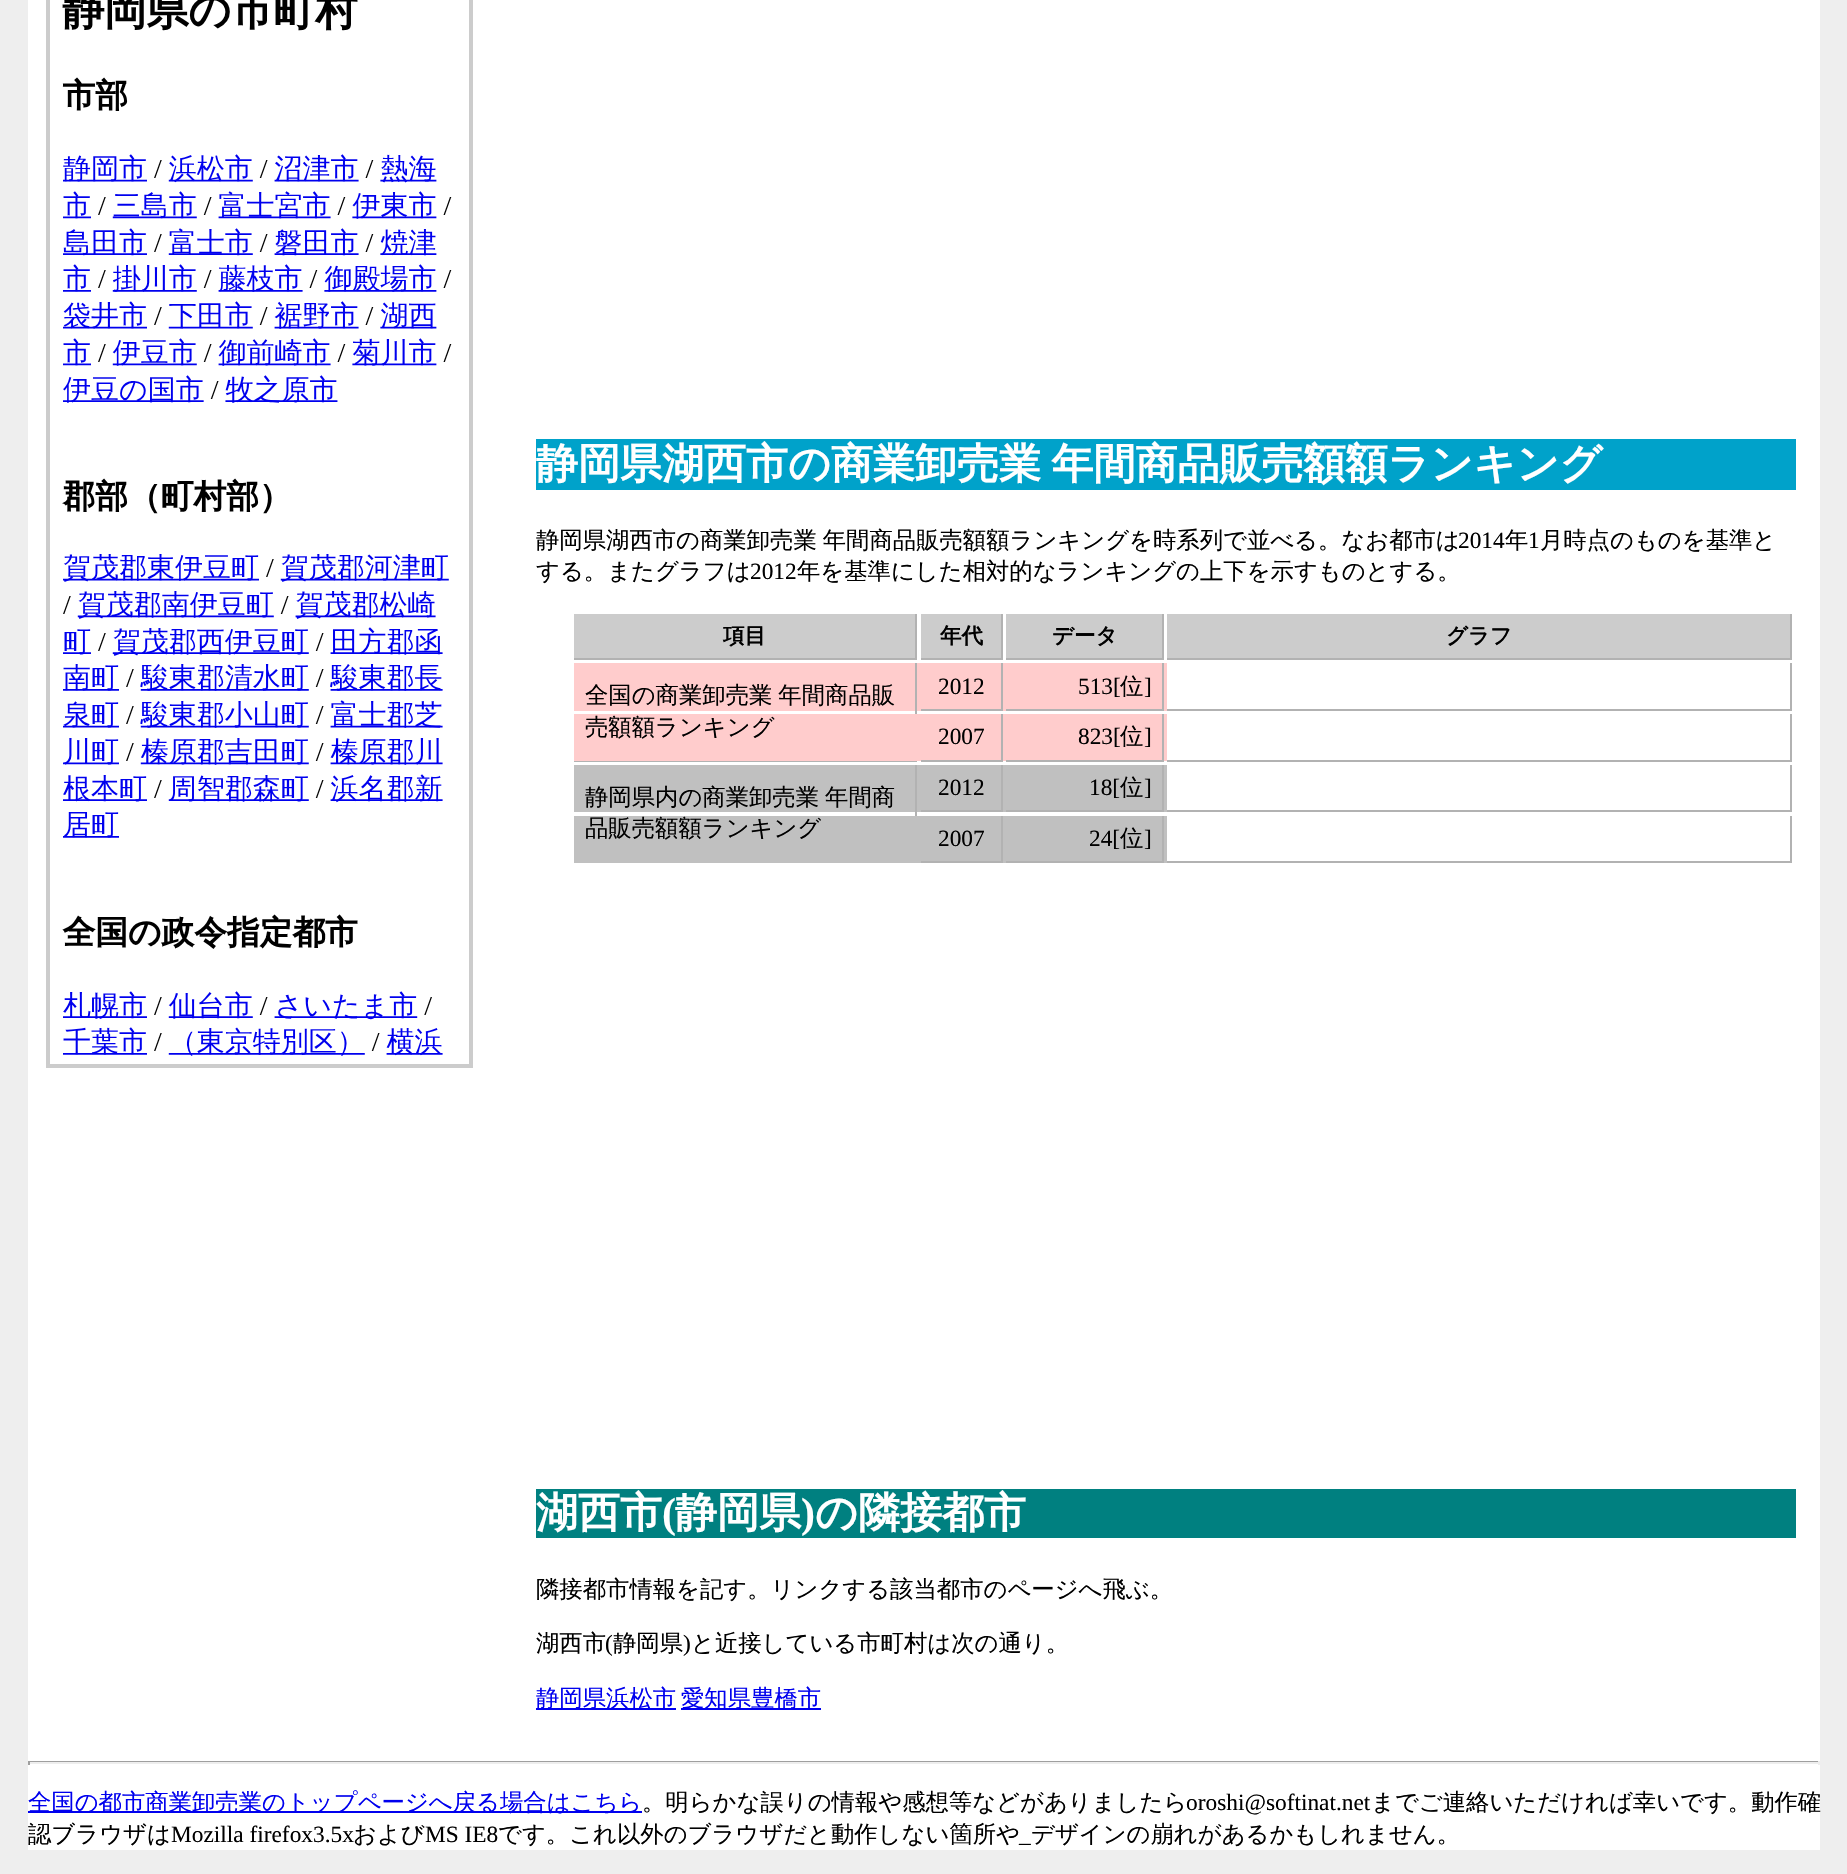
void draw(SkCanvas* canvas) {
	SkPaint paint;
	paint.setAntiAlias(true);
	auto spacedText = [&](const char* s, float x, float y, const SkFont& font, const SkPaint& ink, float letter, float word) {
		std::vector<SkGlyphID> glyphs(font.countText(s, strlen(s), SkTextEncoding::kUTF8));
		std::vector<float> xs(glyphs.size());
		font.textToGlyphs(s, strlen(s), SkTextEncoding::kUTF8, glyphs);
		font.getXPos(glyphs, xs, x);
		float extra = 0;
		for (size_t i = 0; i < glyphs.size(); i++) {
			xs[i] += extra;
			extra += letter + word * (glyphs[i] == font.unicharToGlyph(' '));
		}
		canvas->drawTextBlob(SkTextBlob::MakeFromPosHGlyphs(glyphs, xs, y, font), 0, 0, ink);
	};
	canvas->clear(0xffeeeeee);
	paint.setColor(0xffffffff);
	canvas->drawRect(SkRect::MakeXYWH(28, 0, 1792, 1850), paint);
	paint.setStroke(true);
	paint.setStrokeWidth(4);
	paint.setColor(0xffcccccc);
	canvas->drawRect(SkRect::MakeXYWH(48, -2, 423, 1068), paint);
	canvas->drawImageRect(SkImages::DeferredFromEncodedData(SkData::MakeFromFileName("img1.png")), SkRect::MakeXYWH(62, 0, 390, 1056), SkSamplingOptions());
	paint.setStroke(false);
	paint.setColor(0xff00a2ca);
	canvas->drawRect(SkRect::MakeXYWH(536, 439, 1260, 51), paint);
	SkFont f1(fontMgr->matchFamilyStyle("WenQuanYi Zen Hei", SkFontStyle::Bold()), 42);
	f1.setSubpixel(true);
	paint.setColor(0xffffffff);
	spacedText("静岡県湖西市の商業卸売業 年間商品販売額額ランキング", 536, 478, f1, paint, 0, -2);
	SkFont f2(fontMgr->matchFamilyStyle("WenQuanYi Zen Hei", SkFontStyle(500, SkFontStyle::kNormal_Width, SkFontStyle::kUpright_Slant)), 23.35);
	f2.setSubpixel(true);
	paint.setColor(0xff000000);
	spacedText("静岡県湖西市の商業卸売業 年間商品販売額額ランキングを時系列で並べる。なお都市は", 536, 548, f2, paint, 0, -1);
	SkFont f3(fontMgr->matchFamilyStyle("Liberation Serif", SkFontStyle::Normal()), 23.35);
	f3.setSubpixel(true);
	canvas->drawString("2014", 1458, 548, f3, paint);
	canvas->drawString("年", 1505, 548, f2, paint);
	canvas->drawString("1", 1528, 548, f3, paint);
	canvas->drawString("月時点のものを基準と", 1540, 548, f2, paint);
	canvas->drawString("する。またグラフは", 536, 579, f2, paint);
	canvas->drawString("2012", 750, 579, f3, paint);
	canvas->drawString("年を基準にした相対的なランキングの上下を示すものとする。", 797, 579, f2, paint);
	paint.setColor(0xffcccccc);
	canvas->drawRect(SkRect::MakeXYWH(574, 614, 341, 44), paint);
	paint.setColor(0xffb2b2b2);
	canvas->drawRect(SkRect::MakeXYWH(915, 614, 2, 46), paint);
	canvas->drawRect(SkRect::MakeXYWH(574, 658, 343, 2), paint);
	SkFont f4(fontMgr->matchFamilyStyle("WenQuanYi Zen Hei", SkFontStyle::Bold()), 21.5);
	f4.setSubpixel(true);
	paint.setColor(0xff000000);
	canvas->drawString("項目", 723, 643, f4, paint);
	paint.setColor(0xffcccccc);
	canvas->drawRect(SkRect::MakeXYWH(921, 614, 80, 44), paint);
	paint.setColor(0xffb2b2b2);
	canvas->drawRect(SkRect::MakeXYWH(1001, 614, 2, 46), paint);
	canvas->drawRect(SkRect::MakeXYWH(921, 658, 82, 2), paint);
	paint.setColor(0xff000000);
	canvas->drawString("年代", 940, 643, f4, paint);
	paint.setColor(0xffcccccc);
	canvas->drawRect(SkRect::MakeXYWH(1006, 614, 156, 44), paint);
	paint.setColor(0xffb2b2b2);
	canvas->drawRect(SkRect::MakeXYWH(1162, 614, 2, 46), paint);
	canvas->drawRect(SkRect::MakeXYWH(1006, 658, 158, 2), paint);
	paint.setColor(0xff000000);
	canvas->drawString("データ", 1052, 643, f4, paint);
	paint.setColor(0xffcccccc);
	canvas->drawRect(SkRect::MakeXYWH(1167, 614, 623, 44), paint);
	paint.setColor(0xffb2b2b2);
	canvas->drawRect(SkRect::MakeXYWH(1790, 614, 2, 46), paint);
	canvas->drawRect(SkRect::MakeXYWH(1167, 658, 625, 2), paint);
	paint.setColor(0xff000000);
	canvas->drawString("グラフ", 1446, 643, f4, paint);
	paint.setColor(0xffffcccc);
	canvas->drawRect(SkRect::MakeXYWH(574, 663, 593, 48), paint);
	paint.setColor(0xffb2b2b2);
	canvas->drawRect(SkRect::MakeXYWH(915, 663, 2, 51), paint);
	canvas->drawRect(SkRect::MakeXYWH(574, 761, 343, 1), paint);
	paint.setColor(0xff000000);
	spacedText("全国の商業卸売業 年間商品販", 585, 703, f2, paint, 0, -1);
	paint.setColor(0xffffcccc);
	canvas->drawRect(SkRect::MakeXYWH(574, 714, 593, 47), paint);
	paint.setColor(0xff000000);
	canvas->drawString("売額額ランキング", 585, 735, f2, paint);
	paint.setColor(0xffb2b2b2);
	canvas->drawRect(SkRect::MakeXYWH(1001, 663, 2, 48), paint);
	canvas->drawRect(SkRect::MakeXYWH(921, 709, 82, 2), paint);
	paint.setColor(0xff000000);
	canvas->drawString("2012", 938, 694, f3, paint);
	paint.setColor(0xffb2b2b2);
	canvas->drawRect(SkRect::MakeXYWH(1162, 663, 2, 48), paint);
	canvas->drawRect(SkRect::MakeXYWH(1006, 709, 158, 2), paint);
	paint.setColor(0xff000000);
	canvas->drawString("513[", 1078, 694, f3, paint);
	canvas->drawString("位", 1120, 694, f2, paint);
	canvas->drawString("]", 1144, 694, f3, paint);
	paint.setColor(0xffb2b2b2);
	canvas->drawRect(SkRect::MakeXYWH(1790, 663, 2, 48), paint);
	canvas->drawRect(SkRect::MakeXYWH(1167, 709, 625, 2), paint);
	canvas->drawRect(SkRect::MakeXYWH(1001, 714, 2, 47), paint);
	canvas->drawRect(SkRect::MakeXYWH(921, 760, 82, 2), paint);
	paint.setColor(0xff000000);
	canvas->drawString("2007", 938, 744, f3, paint);
	paint.setColor(0xffb2b2b2);
	canvas->drawRect(SkRect::MakeXYWH(1162, 714, 2, 47), paint);
	canvas->drawRect(SkRect::MakeXYWH(1006, 760, 158, 2), paint);
	paint.setColor(0xff000000);
	canvas->drawString("823[", 1078, 744, f3, paint);
	canvas->drawString("位", 1120, 744, f2, paint);
	canvas->drawString("]", 1144, 744, f3, paint);
	paint.setColor(0xffb2b2b2);
	canvas->drawRect(SkRect::MakeXYWH(1790, 714, 2, 47), paint);
	canvas->drawRect(SkRect::MakeXYWH(1167, 760, 625, 2), paint);
	paint.setColor(0xffc0c0c0);
	canvas->drawRect(SkRect::MakeXYWH(574, 765, 593, 47), paint);
	paint.setColor(0xffb2b2b2);
	canvas->drawRect(SkRect::MakeXYWH(915, 765, 2, 51), paint);
	paint.setColor(0xff000000);
	spacedText("静岡県内の商業卸売業 年間商", 585, 805, f2, paint, 0, -1);
	paint.setColor(0xffc0c0c0);
	canvas->drawRect(SkRect::MakeXYWH(574, 816, 593, 47), paint);
	paint.setColor(0xff000000);
	canvas->drawString("品販売額額ランキング", 585, 836, f2, paint);
	paint.setColor(0xffb2b2b2);
	canvas->drawRect(SkRect::MakeXYWH(1001, 765, 2, 47), paint);
	canvas->drawRect(SkRect::MakeXYWH(921, 810, 82, 2), paint);
	paint.setColor(0xff000000);
	canvas->drawString("2012", 938, 795, f3, paint);
	paint.setColor(0xffb2b2b2);
	canvas->drawRect(SkRect::MakeXYWH(1162, 765, 2, 47), paint);
	canvas->drawRect(SkRect::MakeXYWH(1006, 810, 158, 2), paint);
	paint.setColor(0xff000000);
	canvas->drawString("18[", 1089, 795, f3, paint);
	canvas->drawString("位", 1120, 795, f2, paint);
	canvas->drawString("]", 1144, 795, f3, paint);
	paint.setColor(0xffb2b2b2);
	canvas->drawRect(SkRect::MakeXYWH(1790, 765, 2, 47), paint);
	canvas->drawRect(SkRect::MakeXYWH(1167, 810, 625, 2), paint);
	canvas->drawRect(SkRect::MakeXYWH(1001, 816, 2, 47), paint);
	canvas->drawRect(SkRect::MakeXYWH(921, 861, 82, 2), paint);
	paint.setColor(0xff000000);
	canvas->drawString("2007", 938, 846, f3, paint);
	paint.setColor(0xffb2b2b2);
	canvas->drawRect(SkRect::MakeXYWH(1162, 816, 2, 47), paint);
	canvas->drawRect(SkRect::MakeXYWH(1006, 861, 158, 2), paint);
	paint.setColor(0xff000000);
	canvas->drawString("24[", 1089, 846, f3, paint);
	canvas->drawString("位", 1120, 846, f2, paint);
	canvas->drawString("]", 1144, 846, f3, paint);
	paint.setColor(0xffb2b2b2);
	canvas->drawRect(SkRect::MakeXYWH(1790, 816, 2, 47), paint);
	canvas->drawRect(SkRect::MakeXYWH(1167, 861, 625, 2), paint);
	paint.setColor(0xff008080);
	canvas->drawRect(SkRect::MakeXYWH(536, 1489, 1260, 49), paint);
	paint.setColor(0xffffffff);
	canvas->drawString("湖西市", 536, 1527, f1, paint);
	SkFont f5(fontMgr->matchFamilyStyle("Liberation Serif", SkFontStyle::Bold()), 42);
	f5.setSubpixel(true);
	canvas->drawString("(", 662, 1527, f5, paint);
	canvas->drawString("静岡県", 675, 1527, f1, paint);
	canvas->drawString(")", 801, 1527, f5, paint);
	canvas->drawString("の隣接都市", 815, 1527, f1, paint);
	paint.setColor(0xff000000);
	canvas->drawString("隣接都市情報を記す。リンクする該当都市のページへ飛ぶ。", 536, 1597, f2, paint);
	canvas->drawString("湖西市", 536, 1651, f2, paint);
	canvas->drawString("(", 605, 1651, f3, paint);
	canvas->drawString("静岡県", 613, 1651, f2, paint);
	canvas->drawString(")", 683, 1651, f3, paint);
	canvas->drawString("と近接している市町村は次の通り。", 691, 1651, f2, paint);
	paint.setColor(0xff0000ee);
	canvas->drawRect(SkRect::MakeXYWH(536, 1708, 140, 2), paint);
	canvas->drawString("静岡県浜松市", 536, 1706, f2, paint);
	canvas->drawRect(SkRect::MakeXYWH(681, 1708, 140, 2), paint);
	canvas->drawString("愛知県豊橋市", 681, 1706, f2, paint);
	paint.setColor(0xff9f9f9f);
	canvas->drawRect(SkRect::MakeXYWH(28, 1761, 1792, 1), paint);
	paint.setColor(0xffeeeeee);
	canvas->drawRect(SkRect::MakeXYWH(1818, 1761, 2, 4), paint);
	canvas->drawRect(SkRect::MakeXYWH(28, 1762, 1792, 2), paint);
	paint.setColor(0xff9f9f9f);
	canvas->drawRect(SkRect::MakeXYWH(28, 1761, 2, 4), paint);
	paint.setColor(0xff0000ee);
	canvas->drawRect(SkRect::MakeXYWH(28, 1811, 614, 2), paint);
	canvas->drawString("全国の都市商業卸売業のトップページへ戻る場合はこちら", 28, 1810, f2, paint);
	paint.setColor(0xff000000);
	canvas->drawString("。明らかな誤りの情報や感想等などがありましたら", 642, 1810, f2, paint);
	canvas->drawString("oroshi@softinat.net", 1186, 1810, f3, paint);
	canvas->drawString("までご連絡いただければ幸いです。動作確", 1371, 1810, f2, paint);
	canvas->drawString("認ブラウザは", 28, 1842, f2, paint);
	canvas->drawString("Mozilla firefox3.5x", 171, 1842, f3, paint);
	canvas->drawString("および", 353, 1842, f2, paint);
	canvas->drawString("MS IE8", 425, 1842, f3, paint);
	canvas->drawString("です。これ以外のブラウザだと動作しない箇所や", 498, 1842, f2, paint);
	canvas->drawString("デザインの崩れがあるかもしれません。", 1031, 1842, f2, paint);
	canvas->drawString("_", 1019, 1842, f3, paint);
}
